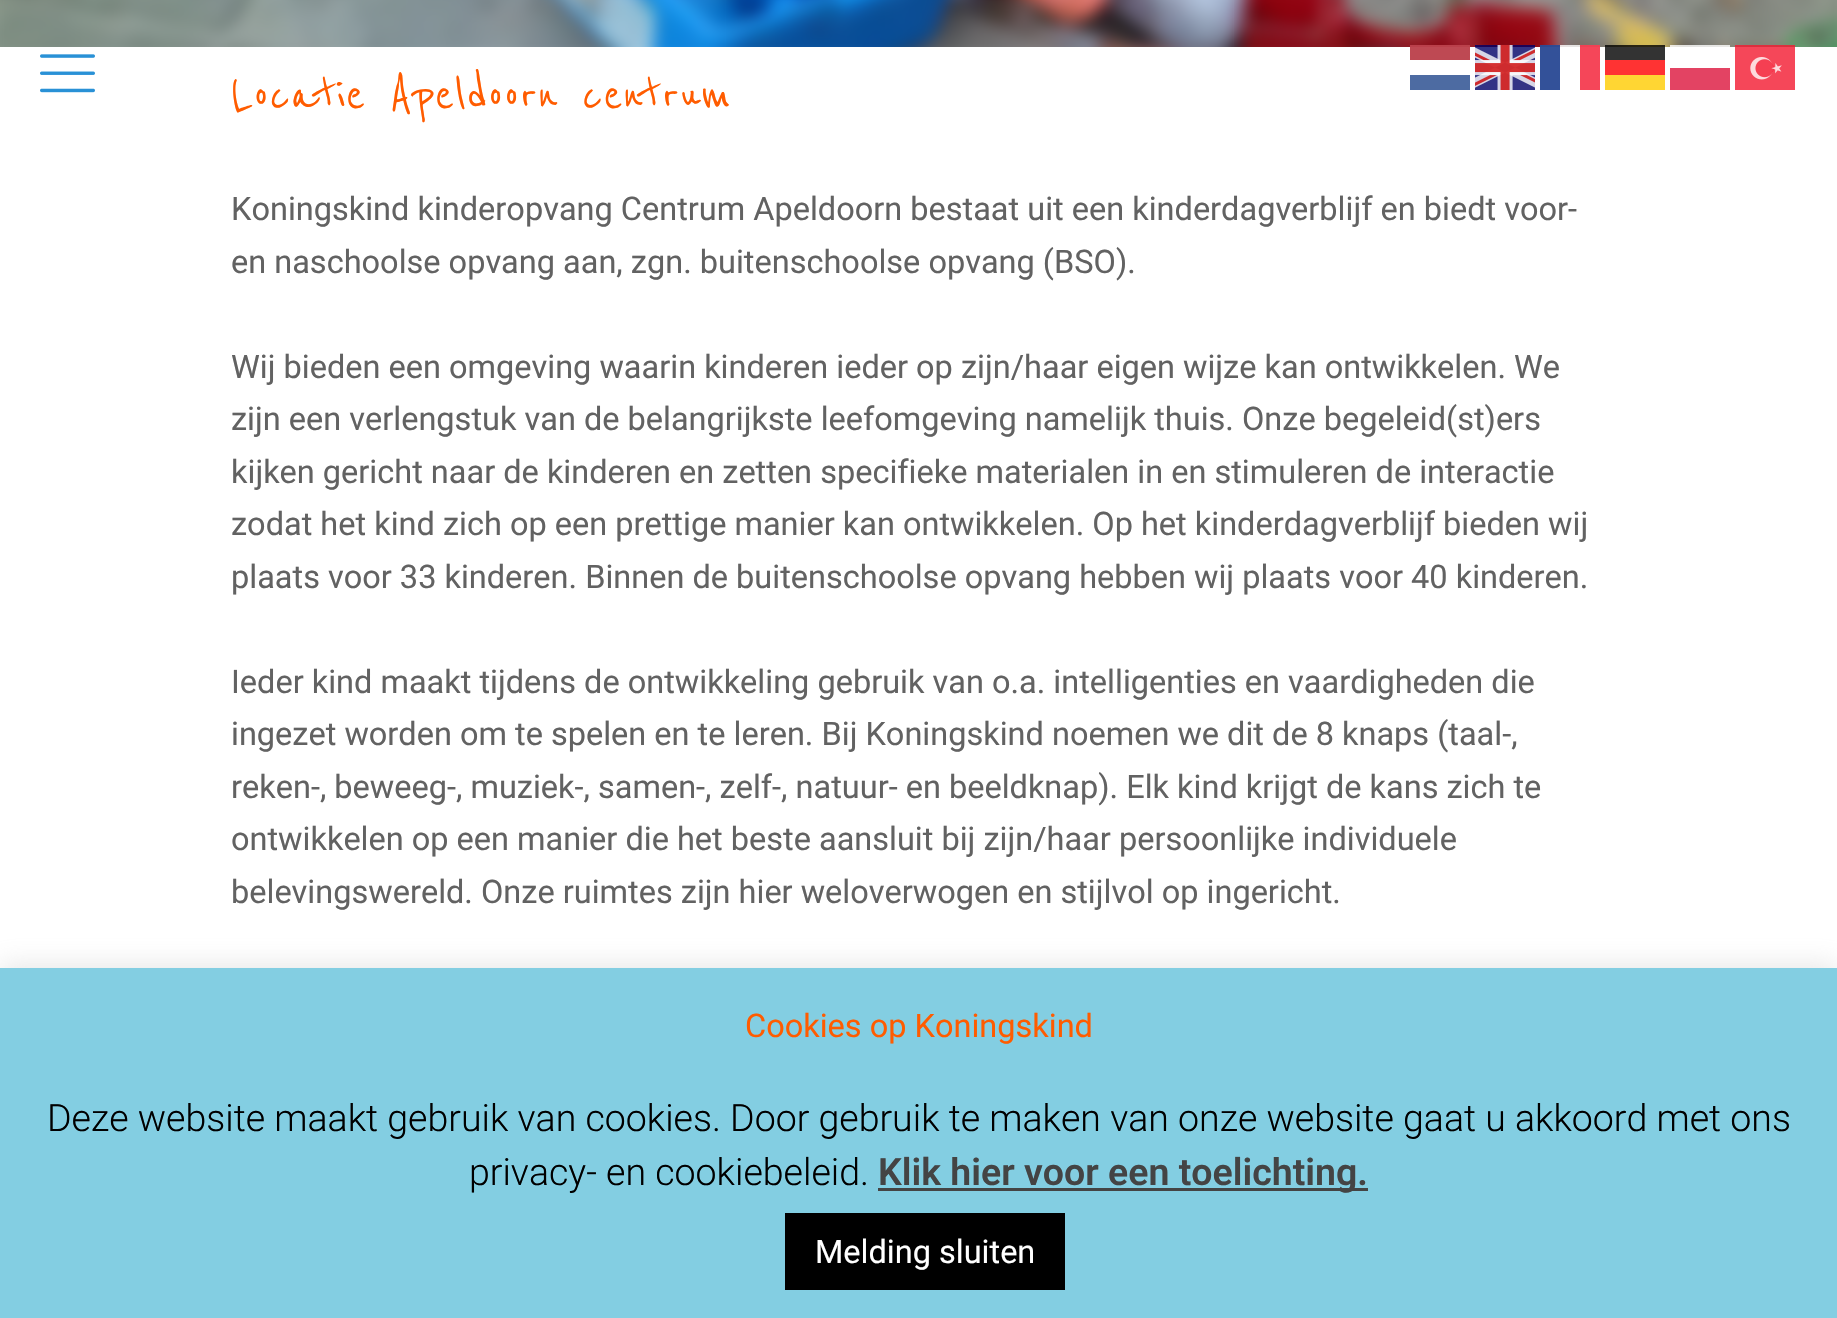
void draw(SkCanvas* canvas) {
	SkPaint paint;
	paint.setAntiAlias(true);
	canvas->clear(0xffffffff);
	canvas->drawImageRect(SkImages::DeferredFromEncodedData(SkData::MakeFromFileName("img1.png")), SkRect::MakeXYWH(0, 0, 1837, 47), SkSamplingOptions());
	canvas->drawImageRect(SkImages::DeferredFromEncodedData(SkData::MakeFromFileName("img2.png")), SkRect::MakeXYWH(40, 54, 55, 39), SkSamplingOptions());
	SkFont f1(fontMgr->matchFamilyStyle("Reenie Beanie", SkFontStyle(500, SkFontStyle::kNormal_Width, SkFontStyle::kUpright_Slant)), 57.5);
	f1.setSubpixel(true);
	paint.setColor(0xffff5c00);
	canvas->drawString("Locatie Apeldoorn centrum", 231, 110, f1, paint);
	SkFont f2(fontMgr->matchFamilyStyle("Roboto", SkFontStyle::Normal()), 32.5);
	f2.setSubpixel(true);
	paint.setColor(0xff626262);
	canvas->drawString("Koningskind kinderopvang Centrum Apeldoorn bestaat uit een kinderdagverblijf en biedt voor-", 231, 220, f2, paint);
	canvas->drawString("en naschoolse opvang aan, zgn. buitenschoolse opvang (BSO).", 231, 273, f2, paint);
	canvas->drawString("Wij bieden een omgeving waarin kinderen ieder op zijn/haar eigen wijze kan ontwikkelen. We", 231, 378, f2, paint);
	canvas->drawString("zijn een verlengstuk van de belangrijkste leefomgeving namelijk thuis. Onze begeleid(st)ers", 231, 430, f2, paint);
	canvas->drawString("kijken gericht naar de kinderen en zetten specifieke materialen in en stimuleren de interactie", 231, 483, f2, paint);
	canvas->drawString("zodat het kind zich op een prettige manier kan ontwikkelen. Op het kinderdagverblijf bieden wij", 231, 535, f2, paint);
	canvas->drawString("plaats voor 33 kinderen. Binnen de buitenschoolse opvang hebben wij plaats voor 40 kinderen.", 231, 588, f2, paint);
	canvas->drawString("Ieder kind maakt tijdens de ontwikkeling gebruik van o.a. intelligenties en vaardigheden die", 231, 693, f2, paint);
	canvas->drawString("ingezet worden om te spelen en te leren. Bij Koningskind noemen we dit de 8 knaps (taal-,", 231, 745, f2, paint);
	canvas->drawString("reken-, beweeg-, muziek-, samen-, zelf-, natuur- en beeldknap). Elk kind krijgt de kans zich te", 231, 798, f2, paint);
	canvas->drawString("ontwikkelen op een manier die het beste aansluit bij zijn/haar persoonlijke individuele", 231, 850, f2, paint);
	canvas->drawString("belevingswereld. Onze ruimtes zijn hier weloverwogen en stijlvol op ingericht.", 231, 903, f2, paint);
	paint.setColor(0xccffffff);
	canvas->drawRect(SkRect::MakeXYWH(1410, 45, 60, 2), paint);
	paint.setColor(0xccae1c28);
	canvas->drawRect(SkRect::MakeXYWH(1410, 45, 60, 15), paint);
	canvas->drawImageRect(SkImages::DeferredFromEncodedData(SkData::MakeFromFileName("img3.png")), SkRect::MakeXYWH(1475, 45, 60, 45), SkSamplingOptions());
	paint.setColor(0xccffffff);
	canvas->drawRect(SkRect::MakeXYWH(1540, 45, 60, 2), paint);
	paint.setColor(0xcc00267f);
	canvas->drawRect(SkRect::MakeXYWH(1540, 45, 20, 45), paint);
	paint.setColor(0xccf31830);
	canvas->drawRect(SkRect::MakeXYWH(1580, 45, 20, 45), paint);
	paint.setColor(0xcc000000);
	canvas->drawRect(SkRect::MakeXYWH(1605, 45, 60, 15), paint);
	paint.setColor(0xccffffff);
	canvas->drawRect(SkRect::MakeXYWH(1670, 45, 60, 2), paint);
	canvas->drawImageRect(SkImages::DeferredFromEncodedData(SkData::MakeFromFileName("img4.png")), SkRect::MakeXYWH(1735, 45, 60, 45), SkSamplingOptions());
	paint.setColor(0xff4d6ba2);
	canvas->drawRect(SkRect::MakeXYWH(1410, 75, 60, 15), paint);
	paint.setColor(0xffff3333);
	canvas->drawRect(SkRect::MakeXYWH(1605, 60, 60, 15), paint);
	paint.setColor(0xffe34363);
	canvas->drawRect(SkRect::MakeXYWH(1670, 68, 60, 22), paint);
	paint.setColor(0xffffd633);
	canvas->drawRect(SkRect::MakeXYWH(1605, 75, 60, 15), paint);
	paint.setColor(0x4dacabab);
	paint.setMaskFilter(SkMaskFilter::MakeBlur(kNormal_SkBlurStyle, 12.5));
	canvas->drawRect(SkRect::MakeXYWH(0, 965, 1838, 353), paint);
	paint.setMaskFilter(nullptr);
	paint.setColor(0xff83cee2);
	canvas->drawRect(SkRect::MakeXYWH(0, 968, 1837, 350), paint);
	paint.setColor(0xffff5c00);
	canvas->drawString("Cookies op Koningskind", 745, 1037, f2, paint);
	SkFont f3(fontMgr->matchFamilyStyle("Roboto", SkFontStyle(300, SkFontStyle::kNormal_Width, SkFontStyle::kUpright_Slant)), 37.5);
	f3.setSubpixel(true);
	paint.setColor(0xff000000);
	canvas->drawString("Deze website maakt gebruik van cookies. Door gebruik te maken van onze website gaat u akkoord met ons", 47, 1131, f3, paint);
	canvas->drawString("privacy- en cookiebeleid.", 469, 1185, f3, paint);
	paint.setColor(0xff444444);
	canvas->drawRect(SkRect::MakeXYWH(878, 1188, 490, 3), paint);
	SkFont f4(fontMgr->matchFamilyStyle("Roboto", SkFontStyle(600, SkFontStyle::kNormal_Width, SkFontStyle::kUpright_Slant)), 37.5);
	f4.setSubpixel(true);
	canvas->drawString("Klik hier voor een toelichting.", 878, 1185, f4, paint);
	paint.setColor(0xff000000);
	canvas->drawRect(SkRect::MakeXYWH(785, 1213, 280, 77), paint);
	paint.setColor(0xffffffff);
	canvas->drawString("Melding sluiten", 815, 1263, f2, paint);
}
